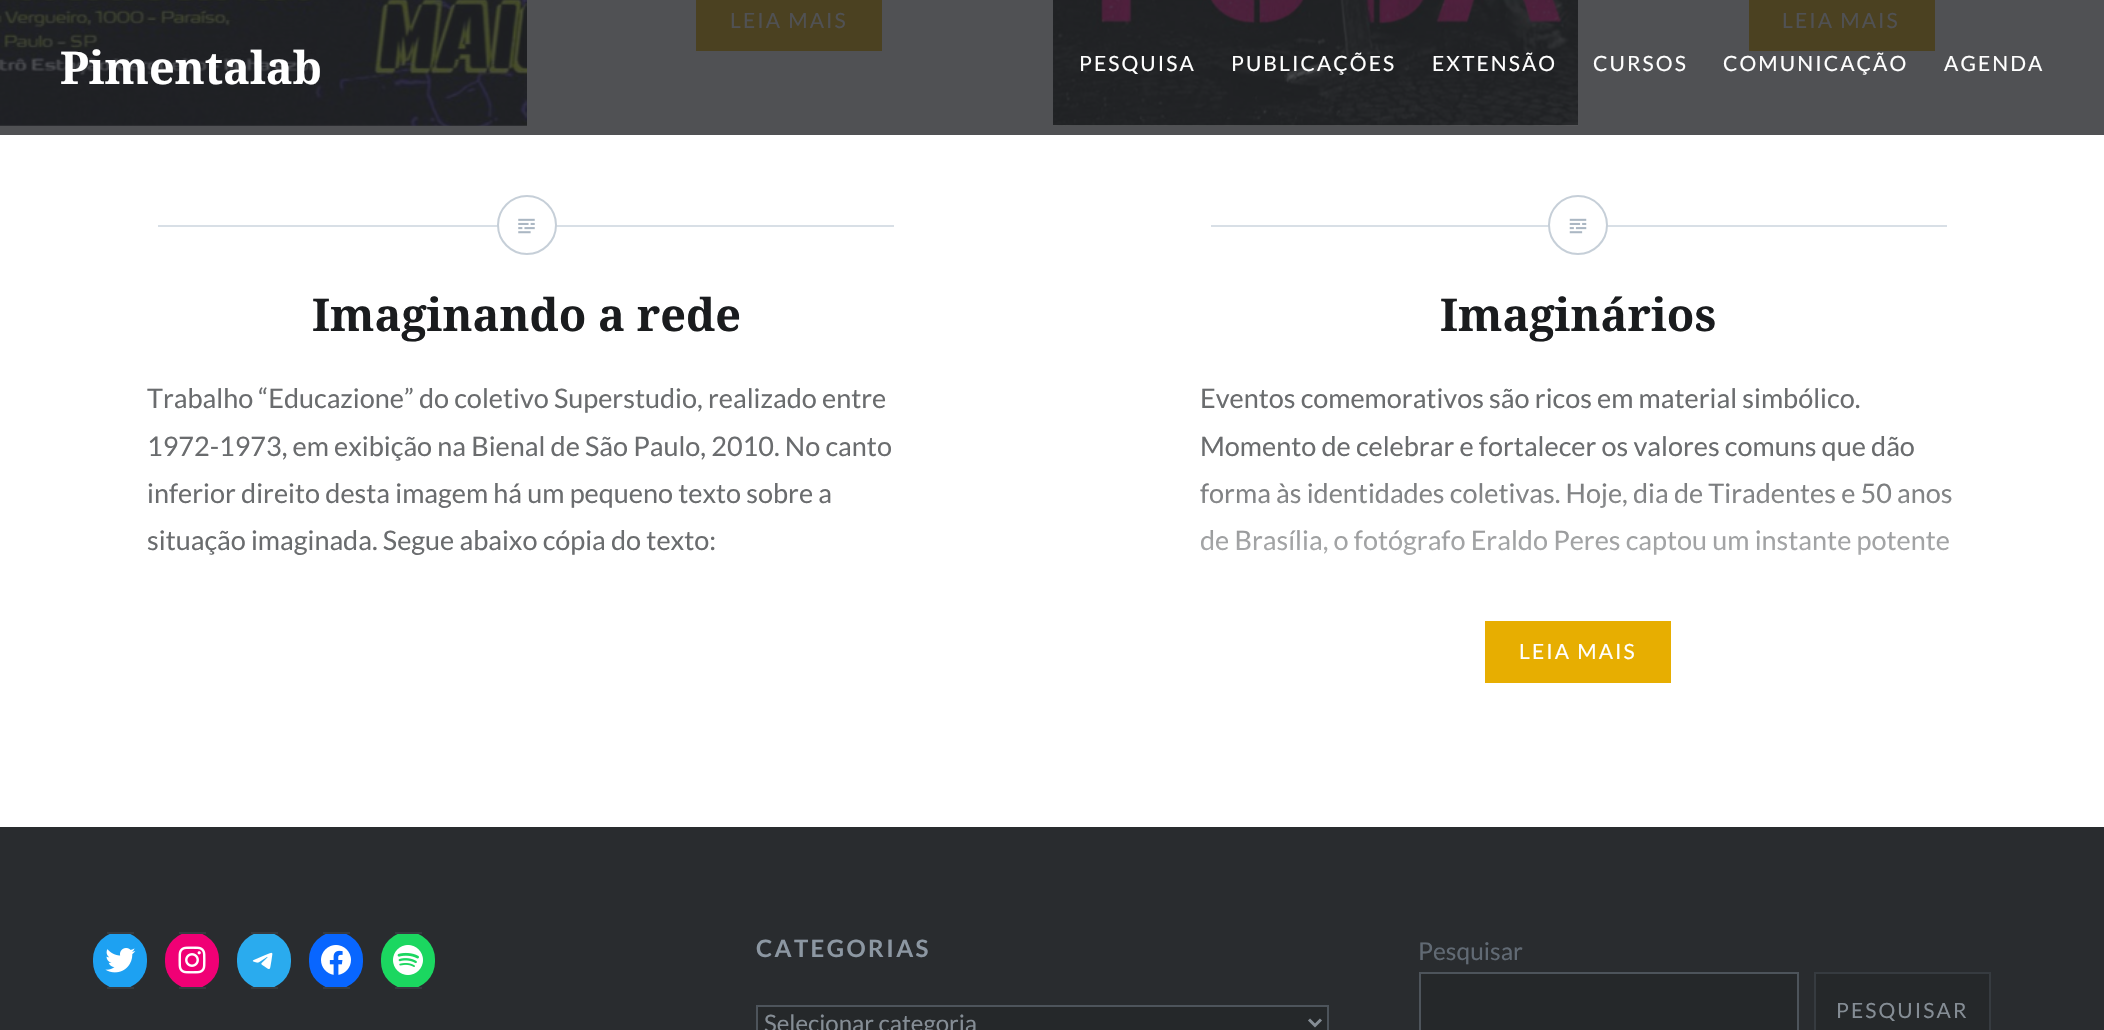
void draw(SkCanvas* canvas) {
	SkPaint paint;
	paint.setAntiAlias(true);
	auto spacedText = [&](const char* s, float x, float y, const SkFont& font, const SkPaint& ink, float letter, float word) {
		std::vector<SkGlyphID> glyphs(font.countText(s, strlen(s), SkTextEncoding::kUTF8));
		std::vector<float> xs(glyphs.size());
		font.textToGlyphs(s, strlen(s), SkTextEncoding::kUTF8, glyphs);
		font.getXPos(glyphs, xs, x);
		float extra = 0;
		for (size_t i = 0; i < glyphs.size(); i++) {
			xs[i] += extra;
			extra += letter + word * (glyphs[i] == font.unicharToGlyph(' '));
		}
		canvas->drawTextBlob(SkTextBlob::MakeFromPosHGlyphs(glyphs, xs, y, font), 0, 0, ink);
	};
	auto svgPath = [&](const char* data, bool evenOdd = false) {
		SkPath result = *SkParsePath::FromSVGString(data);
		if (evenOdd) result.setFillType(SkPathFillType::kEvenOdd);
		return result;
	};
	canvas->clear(0xffffffff);
	paint.setColor(0xff505154);
	canvas->drawRect(SkRect::MakeXYWH(0, 51, 1053, 84), paint);
	canvas->drawImageRect(SkImages::DeferredFromEncodedData(SkData::MakeFromFileName("img1.png")), SkRect::MakeXYWH(0, 0, 527, 126), SkSamplingOptions());
	canvas->drawRect(SkRect::MakeXYWH(527, 0, 526, 51), paint);
	paint.setColor(0xff4b4121);
	canvas->drawRect(SkRect::MakeXYWH(696, 0, 186, 51), paint);
	SkFont f1(fontMgr->matchFamilyStyle("Lato", SkFontStyle::Normal()), 21);
	f1.setSubpixel(true);
	paint.setColor(0xff505154);
	spacedText("LEIA MAIS", 730, 28, f1, paint, 2.1, 0);
	canvas->drawImageRect(SkImages::DeferredFromEncodedData(SkData::MakeFromFileName("img2.png")), SkRect::MakeXYWH(1053, 0, 525, 126), SkSamplingOptions());
	canvas->drawRect(SkRect::MakeXYWH(1578, 0, 526, 126), paint);
	paint.setColor(0xff4b4121);
	canvas->drawRect(SkRect::MakeXYWH(1749, 0, 186, 51), paint);
	paint.setColor(0xff505154);
	spacedText("LEIA MAIS", 1782, 28, f1, paint, 2.1, 0);
	paint.setColor(0xffd8dfe6);
	canvas->drawRect(SkRect::MakeXYWH(158, 225, 736, 2), paint);
	paint.setColor(0xffffffff);
	canvas->drawCircle(527, 225, 29, paint);
	paint.setStroke(true);
	paint.setStrokeWidth(2);
	paint.setColor(0xffc6cfd8);
	canvas->drawCircle(527, 225, 29, paint);
	canvas->drawImageRect(SkImages::DeferredFromEncodedData(SkData::MakeFromFileName("img3.png")), SkRect::MakeXYWH(518, 218, 17, 16), SkSamplingOptions());
	SkFont f2(fontMgr->matchFamilyStyle("Noto Serif", SkFontStyle::Bold()), 45);
	f2.setSubpixel(true);
	paint.setStroke(false);
	paint.setColor(0xff1a1c1e);
	canvas->drawString("Imaginando a rede", 312, 331, f2, paint);
	SkFont f3(fontMgr->matchFamilyStyle("Lato", SkFontStyle::Normal()), 27);
	f3.setSubpixel(true);
	paint.setColor(0xff6a6c6e);
	canvas->drawString("Trabalho “Educazione” do coletivo Superstudio, realizado entre", 147, 408, f3, paint);
	canvas->drawString("1972-1973, em exibição na Bienal de São Paulo, 2010. No canto", 147, 456, f3, paint);
	canvas->drawString("inferior direito desta imagem há um pequeno texto sobre a", 147, 503, f3, paint);
	canvas->drawString("situação imaginada. Segue abaixo cópia do texto:", 147, 550, f3, paint);
	paint.setColor(0xff505154);
	canvas->drawRect(SkRect::MakeXYWH(1053, 126, 1051, 9), paint);
	paint.setColor(0xffd8dfe6);
	canvas->drawRect(SkRect::MakeXYWH(1211, 225, 736, 2), paint);
	paint.setColor(0xffffffff);
	canvas->drawCircle(1578, 225, 29, paint);
	paint.setStroke(true);
	paint.setColor(0xffc6cfd8);
	canvas->drawCircle(1578, 225, 29, paint);
	canvas->drawImageRect(SkImages::DeferredFromEncodedData(SkData::MakeFromFileName("img4.png")), SkRect::MakeXYWH(1569, 218, 18, 16), SkSamplingOptions());
	paint.setStroke(false);
	paint.setColor(0xff1a1c1e);
	canvas->drawString("Imaginários", 1440, 331, f2, paint);
	paint.setColor(0xff6a6c6e);
	canvas->drawString("Eventos comemorativos são ricos em material simbólico.", 1200, 408, f3, paint);
	canvas->drawString("Momento de celebrar e fortalecer os valores comuns que dão", 1200, 456, f3, paint);
	canvas->drawString("forma às identidades coletivas. Hoje, dia de Tiradentes e 50 anos", 1200, 503, f3, paint);
	canvas->drawString("de Brasília, o fotógrafo Eraldo Peres captou um instante potente", 1200, 550, f3, paint);
	paint.setColor(0xffe7ae01);
	canvas->drawRect(SkRect::MakeXYWH(1485, 621, 186, 62), paint);
	paint.setColor(0xffffffff);
	spacedText("LEIA MAIS", 1519, 659, f1, paint, 2.1, 0);
	{
		const SkColor colors[] = {0x00ffffff, 0xffffffff};
		const float stops[] = {0, 1};
		const SkPoint ends[] = {{1579, 459}, {1579, 683}};
		paint.setShader(SkGradientShader::MakeLinear(ends, colors, stops, 2, SkTileMode::kClamp));
		paint.setAlpha(255);
	}
	canvas->drawRect(SkRect::MakeXYWH(1200, 483, 751, 72), paint);
	paint.setShader(nullptr);
	paint.setColor(0xff292c2f);
	canvas->drawRect(SkRect::MakeXYWH(0, 827, 2104, 203), paint);
	paint.setColor(0xff1da1f2);
	canvas->drawRoundRect(SkRect::MakeXYWH(93, 932, 54, 57), 27, 27, paint);
	paint.setColor(0xff363b40);
	canvas->drawRect(SkRect::MakeXYWH(107, 932, 27, 2), paint);
	canvas->drawRect(SkRect::MakeXYWH(107, 987, 27, 2), paint);
	canvas->drawImageRect(SkImages::DeferredFromEncodedData(SkData::MakeFromFileName("img5.png")), SkRect::MakeXYWH(105, 948, 31, 25), SkSamplingOptions());
	paint.setColor(0xfff00075);
	canvas->drawRoundRect(SkRect::MakeXYWH(165, 932, 54, 57), 27, 27, paint);
	paint.setColor(0xff363b40);
	canvas->drawRect(SkRect::MakeXYWH(179, 932, 27, 2), paint);
	canvas->drawRect(SkRect::MakeXYWH(179, 987, 27, 2), paint);
	canvas->drawImageRect(SkImages::DeferredFromEncodedData(SkData::MakeFromFileName("img6.png")), SkRect::MakeXYWH(178, 946, 28, 28), SkSamplingOptions());
	paint.setColor(0xff2aabee);
	canvas->drawRoundRect(SkRect::MakeXYWH(237, 932, 54, 57), 27, 27, paint);
	paint.setColor(0xff363b40);
	canvas->drawRect(SkRect::MakeXYWH(251, 932, 27, 2), paint);
	canvas->drawRect(SkRect::MakeXYWH(251, 987, 27, 2), paint);
	canvas->drawImageRect(SkImages::DeferredFromEncodedData(SkData::MakeFromFileName("img7.png")), SkRect::MakeXYWH(252, 952, 21, 17), SkSamplingOptions());
	paint.setColor(0xff0866ff);
	canvas->drawRoundRect(SkRect::MakeXYWH(309, 932, 54, 57), 27, 27, paint);
	paint.setColor(0xff363b40);
	canvas->drawRect(SkRect::MakeXYWH(323, 932, 27, 2), paint);
	canvas->drawRect(SkRect::MakeXYWH(323, 987, 27, 2), paint);
	canvas->drawImageRect(SkImages::DeferredFromEncodedData(SkData::MakeFromFileName("img8.png")), SkRect::MakeXYWH(321, 945, 30, 30), SkSamplingOptions());
	paint.setColor(0xff1bd760);
	canvas->drawRoundRect(SkRect::MakeXYWH(381, 932, 54, 57), 27, 27, paint);
	paint.setColor(0xff363b40);
	canvas->drawRect(SkRect::MakeXYWH(395, 932, 27, 2), paint);
	canvas->drawRect(SkRect::MakeXYWH(395, 987, 27, 2), paint);
	canvas->drawImageRect(SkImages::DeferredFromEncodedData(SkData::MakeFromFileName("img9.png")), SkRect::MakeXYWH(393, 945, 30, 30), SkSamplingOptions());
	SkFont f4(fontMgr->matchFamilyStyle("Lato", SkFontStyle::Bold()), 24);
	f4.setSubpixel(true);
	paint.setColor(0xff8c97a2);
	spacedText("CATEGORIAS", 756, 957, f4, paint, 2.4, 0);
	paint.setColor(0xff25282a);
	canvas->drawRect(SkRect::MakeXYWH(757, 1006, 571, 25), paint);
	paint.setStroke(true);
	paint.setColor(0xff4d545b);
	canvas->drawRect(SkRect::MakeXYWH(757, 1006, 571, 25), paint);
	paint.setStrokeWidth(3);
	paint.setColor(0xff858d95);
	canvas->drawPath(svgPath("M1309 1019.5L1315 1025.5L1321 1019.5"), paint);
	SkFont f5(fontMgr->matchFamilyStyle("Lato", SkFontStyle::Normal()), 24);
	f5.setSubpixel(true);
	paint.setStroke(false);
	canvas->drawString("Selecionar categoria", 764, 1032, f5, paint);
	SkFont f6(fontMgr->matchFamilyStyle("Lato", SkFontStyle::Normal()), 24.5);
	f6.setSubpixel(true);
	paint.setColor(0xff616a74);
	canvas->drawString("Pesquisar", 1418, 960, f6, paint);
	paint.setColor(0xff25282a);
	canvas->drawRect(SkRect::MakeXYWH(1420, 973, 378, 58), paint);
	paint.setStroke(true);
	paint.setStrokeWidth(2);
	paint.setColor(0xff4d545b);
	canvas->drawRect(SkRect::MakeXYWH(1420, 973, 378, 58), paint);
	paint.setStroke(false);
	paint.setColor(0xff25282a);
	canvas->drawRect(SkRect::MakeXYWH(1815, 973, 175, 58), paint);
	paint.setStroke(true);
	paint.setColor(0xff363b40);
	canvas->drawRect(SkRect::MakeXYWH(1815, 973, 175, 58), paint);
	paint.setStroke(false);
	paint.setColor(0xff858d95);
	spacedText("PESQUISAR", 1836, 1018, f1, paint, 2.1, 0);
	paint.setColor(0xffffffff);
	canvas->drawString("Pimentalab", 60, 84, f2, paint);
	spacedText("PESQUISA", 1079, 71, f1, paint, 2.1, 0);
	spacedText("PUBLICAÇÕES", 1231, 71, f1, paint, 2.1, 0);
	spacedText("EXTENSÃO", 1432, 71, f1, paint, 2.1, 0);
	spacedText("CURSOS", 1593, 71, f1, paint, 2.1, 0);
	spacedText("COMUNICAÇÃO", 1723, 71, f1, paint, 2.1, 0);
	spacedText("AGENDA", 1944, 71, f1, paint, 2.1, 0);
}
